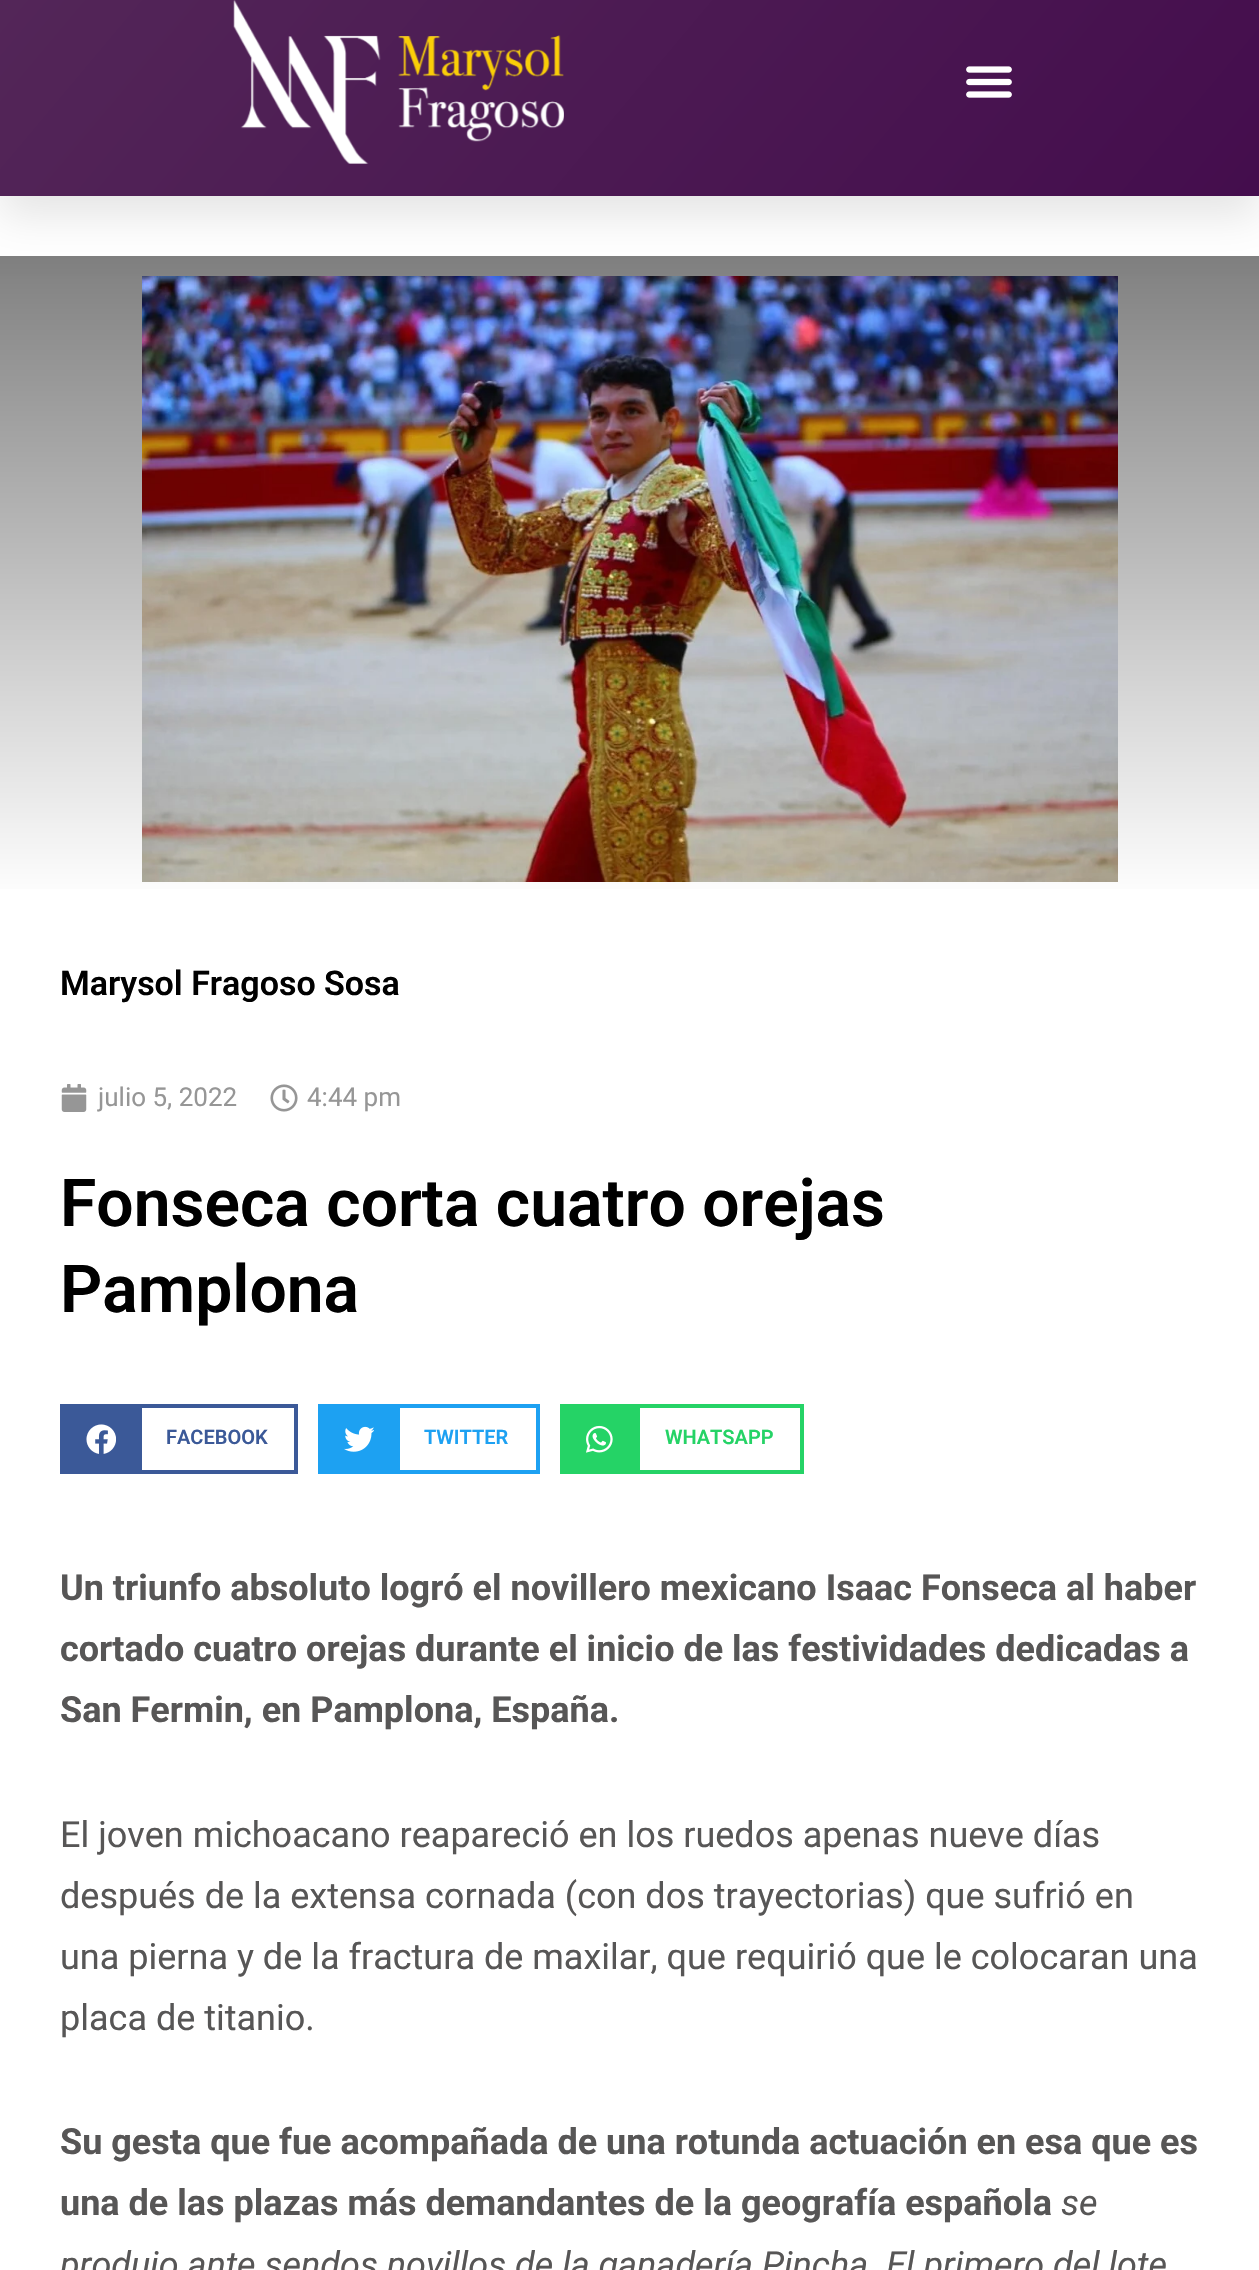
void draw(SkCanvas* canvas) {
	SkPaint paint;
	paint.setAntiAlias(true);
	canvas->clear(0xffffffff);
	{
		const SkColor colors[] = {0xff808080, 0xffffffff};
		const float stops[] = {0, 1};
		const SkPoint ends[] = {{630, 256}, {630, 902}};
		paint.setShader(SkGradientShader::MakeLinear(ends, colors, stops, 2, SkTileMode::kClamp));
		paint.setAlpha(255);
	}
	canvas->drawRect(SkRect::MakeXYWH(0, 256, 1259, 633), paint);
	canvas->drawImageRect(SkImages::DeferredFromEncodedData(SkData::MakeFromFileName("img3.png")), SkRect::MakeXYWH(142, 276, 976, 606), SkSamplingOptions());
	paint.setShader(nullptr);
	paint.setColor(0x1a000000);
	paint.setMaskFilter(SkMaskFilter::MakeBlur(kNormal_SkBlurStyle, 20));
	canvas->drawRect(SkRect::MakeXYWH(0, 20, 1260, 196), paint);
	paint.setMaskFilter(nullptr);
	{
		const SkColor colors[] = {0xff532658, 0xff440d4d};
		const float stops[] = {0, 1};
		const SkPoint ends[] = {{212, -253}, {1048, 449}};
		paint.setShader(SkGradientShader::MakeLinear(ends, colors, stops, 2, SkTileMode::kClamp));
		paint.setAlpha(255);
	}
	canvas->drawRect(SkRect::MakeXYWH(0, 0, 1259, 196), paint);
	canvas->drawImageRect(SkImages::DeferredFromEncodedData(SkData::MakeFromFileName("img1.png")), SkRect::MakeXYWH(233, 0, 331, 164), SkSamplingOptions());
	canvas->drawImageRect(SkImages::DeferredFromEncodedData(SkData::MakeFromFileName("img2.png")), SkRect::MakeXYWH(966, 66, 46, 32), SkSamplingOptions());
	SkFont f1(fontMgr->matchFamilyStyle("Roboto", SkFontStyle(600, SkFontStyle::kNormal_Width, SkFontStyle::kUpright_Slant)), 34);
	f1.setSubpixel(true);
	paint.setShader(nullptr);
	paint.setColor(0xff000000);
	canvas->drawString("Marysol Fragoso Sosa", 60, 995, f1, paint);
	canvas->drawImageRect(SkImages::DeferredFromEncodedData(SkData::MakeFromFileName("img4.png")), SkRect::MakeXYWH(61, 1084, 26, 28), SkSamplingOptions());
	SkFont f2(fontMgr->matchFamilyStyle("Roboto", SkFontStyle::Normal()), 26);
	f2.setSubpixel(true);
	paint.setColor(0xff969696);
	canvas->drawString("julio 5, 2022", 98, 1106, f2, paint);
	canvas->drawImageRect(SkImages::DeferredFromEncodedData(SkData::MakeFromFileName("img5.png")), SkRect::MakeXYWH(270, 1084, 28, 28), SkSamplingOptions());
	canvas->drawString("4:44 pm", 307, 1106, f2, paint);
	SkFont f3(fontMgr->matchFamilyStyle("Roboto", SkFontStyle(600, SkFontStyle::kNormal_Width, SkFontStyle::kUpright_Slant)), 66);
	f3.setSubpixel(true);
	paint.setColor(0xff000000);
	canvas->drawString("Fonseca corta cuatro orejas", 60, 1226, f3, paint);
	canvas->drawString("Pamplona", 60, 1312, f3, paint);
	paint.setStroke(true);
	paint.setStrokeWidth(4);
	paint.setColor(0xff3b5998);
	canvas->drawRect(SkRect::MakeXYWH(62, 1406, 234, 66), paint);
	paint.setStroke(false);
	canvas->drawRect(SkRect::MakeXYWH(64, 1408, 78, 62), paint);
	canvas->drawImageRect(SkImages::DeferredFromEncodedData(SkData::MakeFromFileName("img6.png")), SkRect::MakeXYWH(86, 1424, 30, 30), SkSamplingOptions());
	SkFont f4(fontMgr->matchFamilyStyle("Roboto", SkFontStyle(600, SkFontStyle::kNormal_Width, SkFontStyle::kUpright_Slant)), 20);
	f4.setSubpixel(true);
	canvas->drawString("FACEBOOK", 166, 1444, f4, paint);
	paint.setStroke(true);
	paint.setColor(0xff1da1f2);
	canvas->drawRect(SkRect::MakeXYWH(320, 1406, 218, 66), paint);
	paint.setStroke(false);
	canvas->drawRect(SkRect::MakeXYWH(322, 1408, 78, 62), paint);
	canvas->drawImageRect(SkImages::DeferredFromEncodedData(SkData::MakeFromFileName("img7.png")), SkRect::MakeXYWH(344, 1426, 30, 26), SkSamplingOptions());
	canvas->drawString("TWITTER", 424, 1444, f4, paint);
	paint.setStroke(true);
	paint.setColor(0xff25d366);
	canvas->drawRect(SkRect::MakeXYWH(562, 1406, 240, 66), paint);
	paint.setStroke(false);
	canvas->drawRect(SkRect::MakeXYWH(564, 1408, 76, 62), paint);
	canvas->drawImageRect(SkImages::DeferredFromEncodedData(SkData::MakeFromFileName("img8.png")), SkRect::MakeXYWH(586, 1425, 27, 28), SkSamplingOptions());
	canvas->drawString("WHATSAPP", 665, 1444, f4, paint);
	SkFont f5(fontMgr->matchFamilyStyle("Roboto", SkFontStyle::Bold()), 36);
	f5.setSubpixel(true);
	paint.setColor(0xff575656);
	canvas->drawString("Un triunfo absoluto logró el novillero mexicano Isaac Fonseca al haber", 60, 1600, f5, paint);
	canvas->drawString("cortado cuatro orejas durante el inicio de las festividades dedicadas a", 60, 1661, f5, paint);
	canvas->drawString("San Fermin, en Pamplona, España.", 60, 1722, f5, paint);
	SkFont f6(fontMgr->matchFamilyStyle("Roboto", SkFontStyle::Normal()), 36);
	f6.setSubpixel(true);
	canvas->drawString("El joven michoacano reapareció en los ruedos apenas nueve días", 60, 1847, f6, paint);
	canvas->drawString("después de la extensa cornada (con dos trayectorias) que sufrió en", 60, 1908, f6, paint);
	canvas->drawString("una pierna y de la fractura de maxilar, que requirió que le colocaran una", 60, 1969, f6, paint);
	canvas->drawString("placa de titanio.", 60, 2030, f6, paint);
	canvas->drawString("Su gesta que fue acompañada de una rotunda actuación en esa que es", 60, 2154, f5, paint);
	canvas->drawString("una de las plazas más demandantes de la geografía española", 60, 2215, f5, paint);
	SkFont f7(fontMgr->matchFamilyStyle("Roboto", SkFontStyle::Italic()), 36);
	f7.setSubpixel(true);
	canvas->drawString("se", 1061, 2215, f7, paint);
	canvas->drawString("produjo ante sendos novillos de la ganadería Pincha. El primero del lote", 60, 2277, f7, paint);
}
